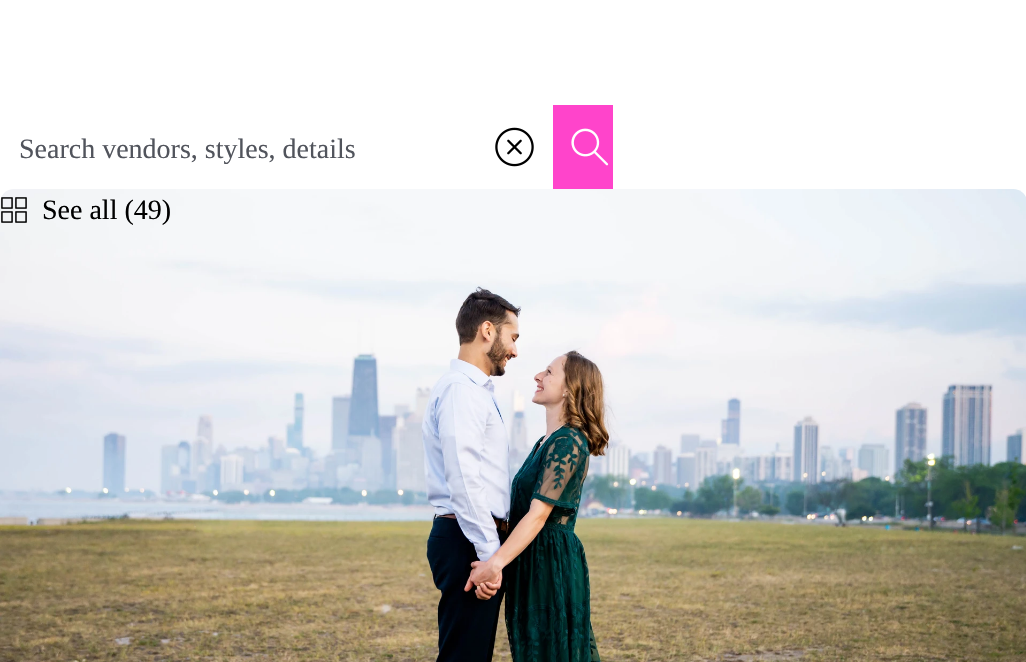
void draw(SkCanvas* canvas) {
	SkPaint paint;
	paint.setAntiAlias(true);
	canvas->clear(0xffffffff);
	SkFont f1(fontMgr->matchFamilyStyle("Liberation Serif", SkFontStyle::Normal()), 28);
	f1.setSubpixel(true);
	paint.setColor(0xff51545c);
	canvas->drawString("Search vendors, styles, details", 19, 158, f1, paint);
	canvas->drawImageRect(SkImages::DeferredFromEncodedData(SkData::MakeFromFileName("img1.png")), SkRect::MakeXYWH(495, 127, 39, 40), SkSamplingOptions());
	paint.setColor(0xffff44cb);
	canvas->drawRect(SkRect::MakeXYWH(553, 105, 60, 84), paint);
	canvas->drawImageRect(SkImages::DeferredFromEncodedData(SkData::MakeFromFileName("img2.png")), SkRect::MakeXYWH(571, 128, 38, 38), SkSamplingOptions());
	canvas->drawImageRect(SkImages::DeferredFromEncodedData(SkData::MakeFromFileName("img3.png")), SkRect::MakeXYWH(0, 189, 1026, 473), SkSamplingOptions());
	canvas->drawImageRect(SkImages::DeferredFromEncodedData(SkData::MakeFromFileName("img4.png")), SkRect::MakeXYWH(1, 197, 26, 26), SkSamplingOptions());
	paint.setColor(0xff000000);
	canvas->drawString("See all (49)", 42, 219, f1, paint);
}
